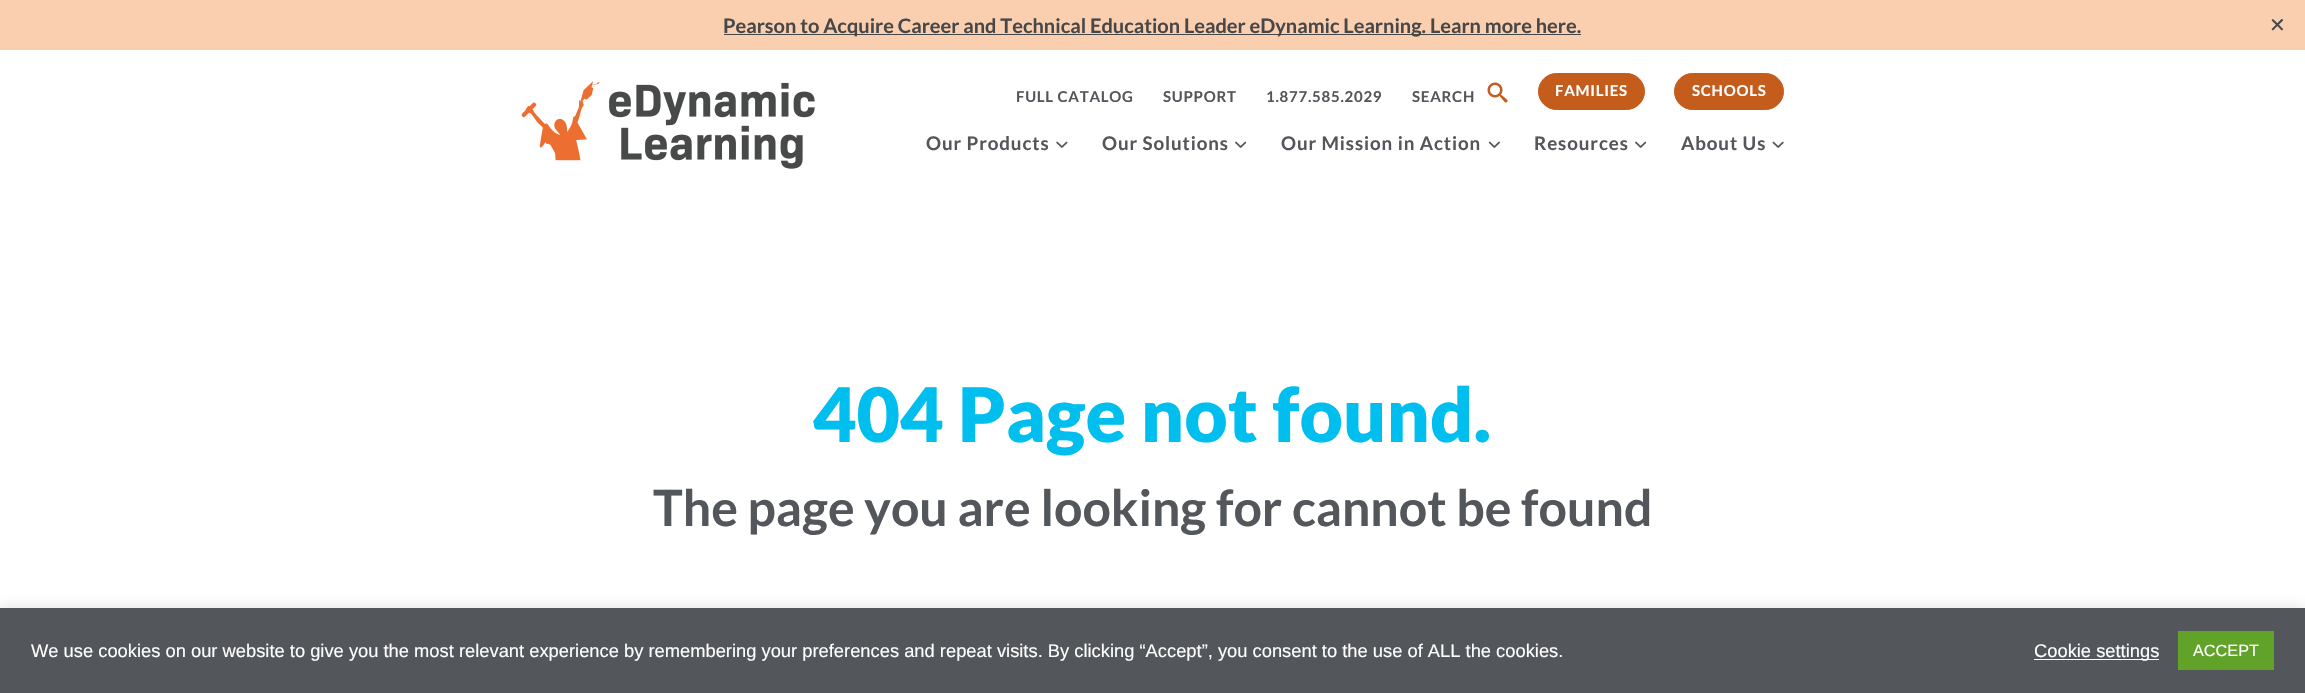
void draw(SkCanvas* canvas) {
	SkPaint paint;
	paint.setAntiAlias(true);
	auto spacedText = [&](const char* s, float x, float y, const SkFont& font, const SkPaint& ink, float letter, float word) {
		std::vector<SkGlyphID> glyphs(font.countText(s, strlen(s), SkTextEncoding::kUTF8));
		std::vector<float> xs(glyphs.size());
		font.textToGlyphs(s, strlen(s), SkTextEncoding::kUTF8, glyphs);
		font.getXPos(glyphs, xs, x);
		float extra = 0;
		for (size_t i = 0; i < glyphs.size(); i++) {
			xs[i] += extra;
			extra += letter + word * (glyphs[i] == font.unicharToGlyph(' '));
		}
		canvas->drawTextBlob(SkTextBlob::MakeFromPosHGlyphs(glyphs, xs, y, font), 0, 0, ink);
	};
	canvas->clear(0xffffffff);
	paint.setColor(0xfffacfb0);
	canvas->drawRect(SkRect::MakeXYWH(0, 0, 2305, 50), paint);
	paint.setColor(0xff474748);
	canvas->drawRect(SkRect::MakeXYWH(724, 34, 857, 1), paint);
	SkFont f1(fontMgr->matchFamilyStyle("Lato", SkFontStyle::Bold()), 20);
	f1.setSubpixel(true);
	canvas->drawString("Pearson to Acquire Career and Technical Education Leader eDynamic Learning. Learn more here.", 723, 33, f1, paint);
	SkFont f2(fontMgr->matchFamilyStyle("DejaVu Sans", SkFontStyle::Normal()), 20);
	f2.setSubpixel(true);
	canvas->drawString("✕", 2269, 32, f2, paint);
	canvas->drawImageRect(SkImages::DeferredFromEncodedData(SkData::MakeFromFileName("img1.png")), SkRect::MakeXYWH(521, 81, 294, 88), SkSamplingOptions());
	SkFont f3(fontMgr->matchFamilyStyle("Lato", SkFontStyle::Bold()), 15);
	f3.setSubpixel(true);
	paint.setColor(0xff53565a);
	spacedText("FULL CATALOG", 1016, 102, f3, paint, 0.75, 0);
	spacedText("SUPPORT", 1163, 102, f3, paint, 0.75, 0);
	spacedText("1.877.585.2029", 1266, 102, f3, paint, 0.75, 0);
	spacedText("SEARCH", 1412, 102, f3, paint, 0.75, 0);
	canvas->drawImageRect(SkImages::DeferredFromEncodedData(SkData::MakeFromFileName("img2.png")), SkRect::MakeXYWH(1487, 82, 21, 21), SkSamplingOptions());
	paint.setColor(0xffc45c1c);
	canvas->drawRoundRect(SkRect::MakeXYWH(1538.5, 73.5, 106, 36), 18, 18, paint);
	paint.setStroke(true);
	paint.setStrokeWidth(1);
	canvas->drawRoundRect(SkRect::MakeXYWH(1538.5, 73.5, 106, 36), 18, 18, paint);
	paint.setStroke(false);
	paint.setColor(0xffffffff);
	spacedText("FAMILIES", 1555, 96, f3, paint, 0.75, 0);
	paint.setColor(0xffc45c1c);
	canvas->drawRoundRect(SkRect::MakeXYWH(1674.5, 73.5, 109, 36), 18, 18, paint);
	paint.setStroke(true);
	canvas->drawRoundRect(SkRect::MakeXYWH(1674.5, 73.5, 109, 36), 18, 18, paint);
	paint.setStroke(false);
	paint.setColor(0xffffffff);
	spacedText("SCHOOLS", 1692, 96, f3, paint, 0.75, 0);
	SkFont f4(fontMgr->matchFamilyStyle("Lato", SkFontStyle::Bold()), 18.75);
	f4.setSubpixel(true);
	paint.setColor(0xff53565a);
	spacedText("Our Products", 926, 150, f4, paint, 0.9, 0);
	canvas->drawImageRect(SkImages::DeferredFromEncodedData(SkData::MakeFromFileName("img3.png")), SkRect::MakeXYWH(1056, 141, 12, 7), SkSamplingOptions());
	spacedText("Our Solutions", 1102, 150, f4, paint, 0.9, 0);
	canvas->drawImageRect(SkImages::DeferredFromEncodedData(SkData::MakeFromFileName("img4.png")), SkRect::MakeXYWH(1235, 141, 11, 7), SkSamplingOptions());
	spacedText("Our Mission in Action", 1281, 150, f4, paint, 0.9, 0);
	canvas->drawImageRect(SkImages::DeferredFromEncodedData(SkData::MakeFromFileName("img5.png")), SkRect::MakeXYWH(1488, 141, 12, 7), SkSamplingOptions());
	spacedText("Resources", 1534, 150, f4, paint, 0.9, 0);
	canvas->drawImageRect(SkImages::DeferredFromEncodedData(SkData::MakeFromFileName("img4.png")), SkRect::MakeXYWH(1635, 141, 11, 7), SkSamplingOptions());
	spacedText("About Us", 1681, 150, f4, paint, 0.9, 0);
	canvas->drawImageRect(SkImages::DeferredFromEncodedData(SkData::MakeFromFileName("img6.png")), SkRect::MakeXYWH(1772, 141, 12, 7), SkSamplingOptions());
	SkFont f5(fontMgr->matchFamilyStyle("Lato", SkFontStyle(900, SkFontStyle::kNormal_Width, SkFontStyle::kUpright_Slant)), 75);
	f5.setSubpixel(true);
	paint.setColor(0xff00bfee);
	canvas->drawString("404 Page not found.", 813, 442, f5, paint);
	SkFont f6(fontMgr->matchFamilyStyle("Lato", SkFontStyle::Bold()), 50);
	f6.setSubpixel(true);
	paint.setColor(0xff53565a);
	canvas->drawString("The page you are looking for cannot be found", 653, 526, f6, paint);
	paint.setColor(0x4dacabab);
	paint.setMaskFilter(SkMaskFilter::MakeBlur(kNormal_SkBlurStyle, 6));
	canvas->drawRect(SkRect::MakeXYWH(0, 606, 2305, 87), paint);
	paint.setMaskFilter(nullptr);
	paint.setColor(0xff53565a);
	canvas->drawRect(SkRect::MakeXYWH(0, 608, 2305, 85), paint);
	SkFont f7(fontMgr->matchFamilyStyle("Liberation Sans", SkFontStyle::Normal()), 18.33);
	f7.setSubpixel(true);
	paint.setColor(0xffffffff);
	canvas->drawString("We use cookies on our website to give you the most relevant experience by remembering your preferences and repeat visits. By clicking “Accept”, you consent to the use of ALL the cookies.", 31, 657, f7, paint);
	canvas->drawRect(SkRect::MakeXYWH(2034, 659, 125, 1), paint);
	canvas->drawString("Cookie settings", 2034, 657, f7, paint);
	paint.setColor(0xff61a229);
	canvas->drawRect(SkRect::MakeXYWH(2178, 631, 96, 39), paint);
	SkFont f8(fontMgr->matchFamilyStyle("Liberation Sans", SkFontStyle::Normal()), 16.25);
	f8.setSubpixel(true);
	paint.setColor(0xffffffff);
	canvas->drawString("ACCEPT", 2193, 656, f8, paint);
}
